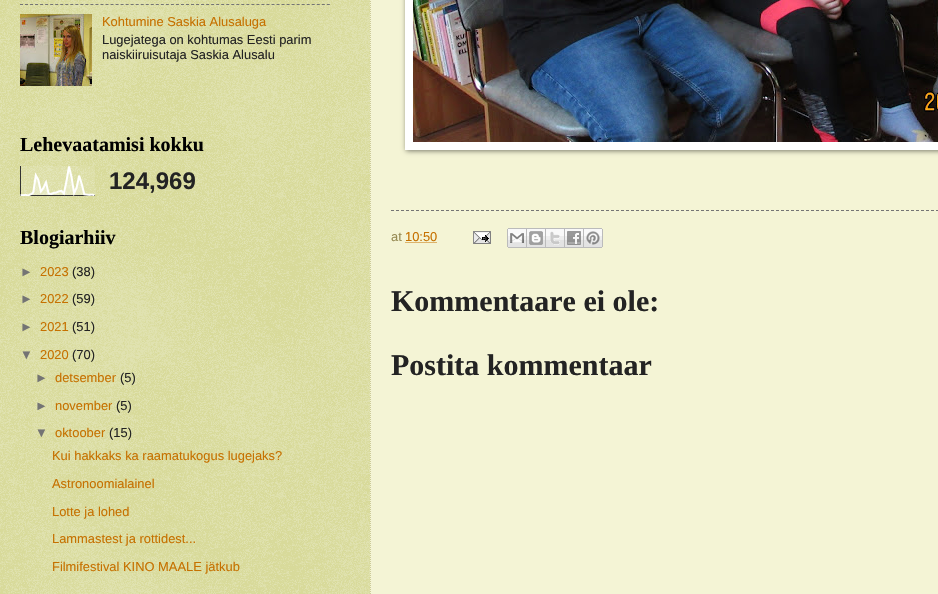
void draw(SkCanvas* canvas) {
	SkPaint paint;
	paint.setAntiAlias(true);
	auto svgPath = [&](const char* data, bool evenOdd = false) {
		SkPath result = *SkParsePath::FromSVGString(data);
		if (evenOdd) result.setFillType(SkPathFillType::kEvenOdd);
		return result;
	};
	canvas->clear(0xffbbbf51);
	canvas->drawImageRect(SkImages::DeferredFromEncodedData(SkData::MakeFromFileName("img1.png")), SkRect::MakeXYWH(0, 0, 370, 594), SkSamplingOptions());
	paint.setStroke(true);
	paint.setStrokeWidth(1);
	paint.setColor(0xff747474);
	paint.setPathEffect(SkDashPathEffect::Make({{3, 2.03f}}, 0));
	canvas->drawPath(svgPath("M20 4.5H330"), paint);
	paint.setPathEffect(nullptr);
	canvas->drawImageRect(SkImages::DeferredFromEncodedData(SkData::MakeFromFileName("img2.png")), SkRect::MakeXYWH(20, 14, 72, 72), SkSamplingOptions());
	SkFont f1(fontMgr->matchFamilyStyle("Liberation Sans", SkFontStyle::Normal()), 12.9);
	f1.setSubpixel(true);
	paint.setStroke(false);
	paint.setColor(0xffc67100);
	canvas->drawString("Kohtumine Saskia Alusaluga", 102, 26, f1, paint);
	paint.setColor(0xff232323);
	canvas->drawString("Lugejatega on kohtumas Eesti parim", 102, 44, f1, paint);
	canvas->drawString("naiskiiruisutaja Saskia Alusalu", 102, 59, f1, paint);
	SkFont f2(fontMgr->matchFamilyStyle("Liberation Serif", SkFontStyle::Bold()), 20);
	f2.setSubpixel(true);
	paint.setColor(0xff000000);
	canvas->drawString("Lehevaatamisi kokku", 20, 151, f2, paint);
	canvas->drawImageRect(SkImages::DeferredFromEncodedData(SkData::MakeFromFileName("img3.png")), SkRect::MakeXYWH(20, 166, 75, 30), SkSamplingOptions());
	SkFont f3(fontMgr->matchFamilyStyle("Liberation Sans", SkFontStyle::Bold()), 24);
	f3.setSubpixel(true);
	paint.setColor(0xff232323);
	canvas->drawString("124,969", 109, 189, f3, paint);
	paint.setColor(0xff000000);
	canvas->drawString("Blogiarhiiv", 20, 244, f2, paint);
	paint.setColor(0xff747474);
	canvas->drawString("►", 20, 276, f1, paint);
	paint.setColor(0xffc67100);
	canvas->drawString("2023", 40, 276, f1, paint);
	paint.setColor(0xff232323);
	canvas->drawString("(38)", 72, 276, f1, paint);
	paint.setColor(0xff747474);
	canvas->drawString("►", 20, 303, f1, paint);
	paint.setColor(0xffc67100);
	canvas->drawString("2022", 40, 303, f1, paint);
	paint.setColor(0xff232323);
	canvas->drawString("(59)", 72, 303, f1, paint);
	paint.setColor(0xff747474);
	canvas->drawString("►", 20, 331, f1, paint);
	paint.setColor(0xffc67100);
	canvas->drawString("2021", 40, 331, f1, paint);
	paint.setColor(0xff232323);
	canvas->drawString("(51)", 72, 331, f1, paint);
	paint.setColor(0xff747474);
	canvas->drawString("▼", 20, 359, f1, paint);
	paint.setColor(0xffc67100);
	canvas->drawString("2020", 40, 359, f1, paint);
	paint.setColor(0xff232323);
	canvas->drawString("(70)", 72, 359, f1, paint);
	paint.setColor(0xff747474);
	canvas->drawString("►", 35, 382, f1, paint);
	paint.setColor(0xffc67100);
	canvas->drawString("detsember", 55, 382, f1, paint);
	paint.setColor(0xff232323);
	canvas->drawString("(5)", 120, 382, f1, paint);
	paint.setColor(0xff747474);
	canvas->drawString("►", 35, 410, f1, paint);
	paint.setColor(0xffc67100);
	canvas->drawString("november", 55, 410, f1, paint);
	paint.setColor(0xff232323);
	canvas->drawString("(5)", 116, 410, f1, paint);
	paint.setColor(0xff747474);
	canvas->drawString("▼", 35, 437, f1, paint);
	paint.setColor(0xffc67100);
	canvas->drawString("oktoober", 55, 437, f1, paint);
	paint.setColor(0xff232323);
	canvas->drawString("(15)", 109, 437, f1, paint);
	paint.setColor(0xffc67100);
	canvas->drawString("Kui hakkaks ka raamatukogus lugejaks?", 52, 460, f1, paint);
	canvas->drawString("Astronoomialainel", 52, 488, f1, paint);
	canvas->drawString("Lotte ja lohed", 52, 516, f1, paint);
	canvas->drawString("Lammastest ja rottidest...", 52, 543, f1, paint);
	canvas->drawString("Filmifestival KINO MAALE jätkub", 52, 571, f1, paint);
	paint.setColor(0xfff4f4d5);
	canvas->drawRect(SkRect::MakeXYWH(370, 0, 568, 594), paint);
	paint.setStroke(true);
	paint.setColor(0xffcbca97);
	paint.setPathEffect(SkDashPathEffect::Make({{1, 1}}, 0));
	canvas->drawPath(svgPath("M370.5-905V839"), paint);
	paint.setPathEffect(nullptr);
	paint.setStroke(false);
	paint.setColor(0x80000000);
	paint.setMaskFilter(SkMaskFilter::MakeBlur(kNormal_SkBlurStyle, 2.5));
	canvas->drawRect(SkRect::MakeXYWH(406, -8, 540, 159), paint);
	paint.setMaskFilter(nullptr);
	paint.setColor(0xffffffff);
	canvas->drawRect(SkRect::MakeXYWH(405, 0, 533, 150), paint);
	canvas->drawImageRect(SkImages::DeferredFromEncodedData(SkData::MakeFromFileName("img4.png")), SkRect::MakeXYWH(413, 0, 525, 142), SkSamplingOptions());
	paint.setStroke(true);
	paint.setColor(0xff747474);
	paint.setPathEffect(SkDashPathEffect::Make({{3, 2}}, 0));
	canvas->drawPath(svgPath("M391 210.5H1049"), paint);
	paint.setPathEffect(nullptr);
	paint.setStroke(false);
	paint.setColor(0xff968a53);
	canvas->drawString("at", 391, 241, f1, paint);
	paint.setColor(0xffc67100);
	canvas->drawString("10:50", 405, 241, f1, paint);
	paint.setStroke(true);
	paint.setPathEffect(SkDashPathEffect::Make({{1, 1}}, 0));
	canvas->drawPath(svgPath("M405.5 242.5H437.5"), paint);
	paint.setPathEffect(nullptr);
	canvas->drawImageRect(SkImages::DeferredFromEncodedData(SkData::MakeFromFileName("img5.png")), SkRect::MakeXYWH(473, 231, 18, 13), SkSamplingOptions());
	canvas->drawImageRect(SkImages::DeferredFromEncodedData(SkData::MakeFromFileName("img6.png")), SkRect::MakeXYWH(507, 228, 20, 20), SkSamplingOptions());
	canvas->drawImageRect(SkImages::DeferredFromEncodedData(SkData::MakeFromFileName("img7.png")), SkRect::MakeXYWH(527, 228, 19, 20), SkSamplingOptions());
	canvas->drawImageRect(SkImages::DeferredFromEncodedData(SkData::MakeFromFileName("img8.png")), SkRect::MakeXYWH(546, 228, 19, 20), SkSamplingOptions());
	canvas->drawImageRect(SkImages::DeferredFromEncodedData(SkData::MakeFromFileName("img9.png")), SkRect::MakeXYWH(565, 228, 19, 20), SkSamplingOptions());
	canvas->drawImageRect(SkImages::DeferredFromEncodedData(SkData::MakeFromFileName("img10.png")), SkRect::MakeXYWH(584, 228, 19, 20), SkSamplingOptions());
	SkFont f4(fontMgr->matchFamilyStyle("Liberation Serif", SkFontStyle::Bold()), 30);
	f4.setSubpixel(true);
	paint.setStroke(false);
	paint.setColor(0xff232323);
	canvas->drawString("Kommentaare ei ole:", 391, 311, f4, paint);
	canvas->drawString("Postita kommentaar", 391, 375, f4, paint);
}
